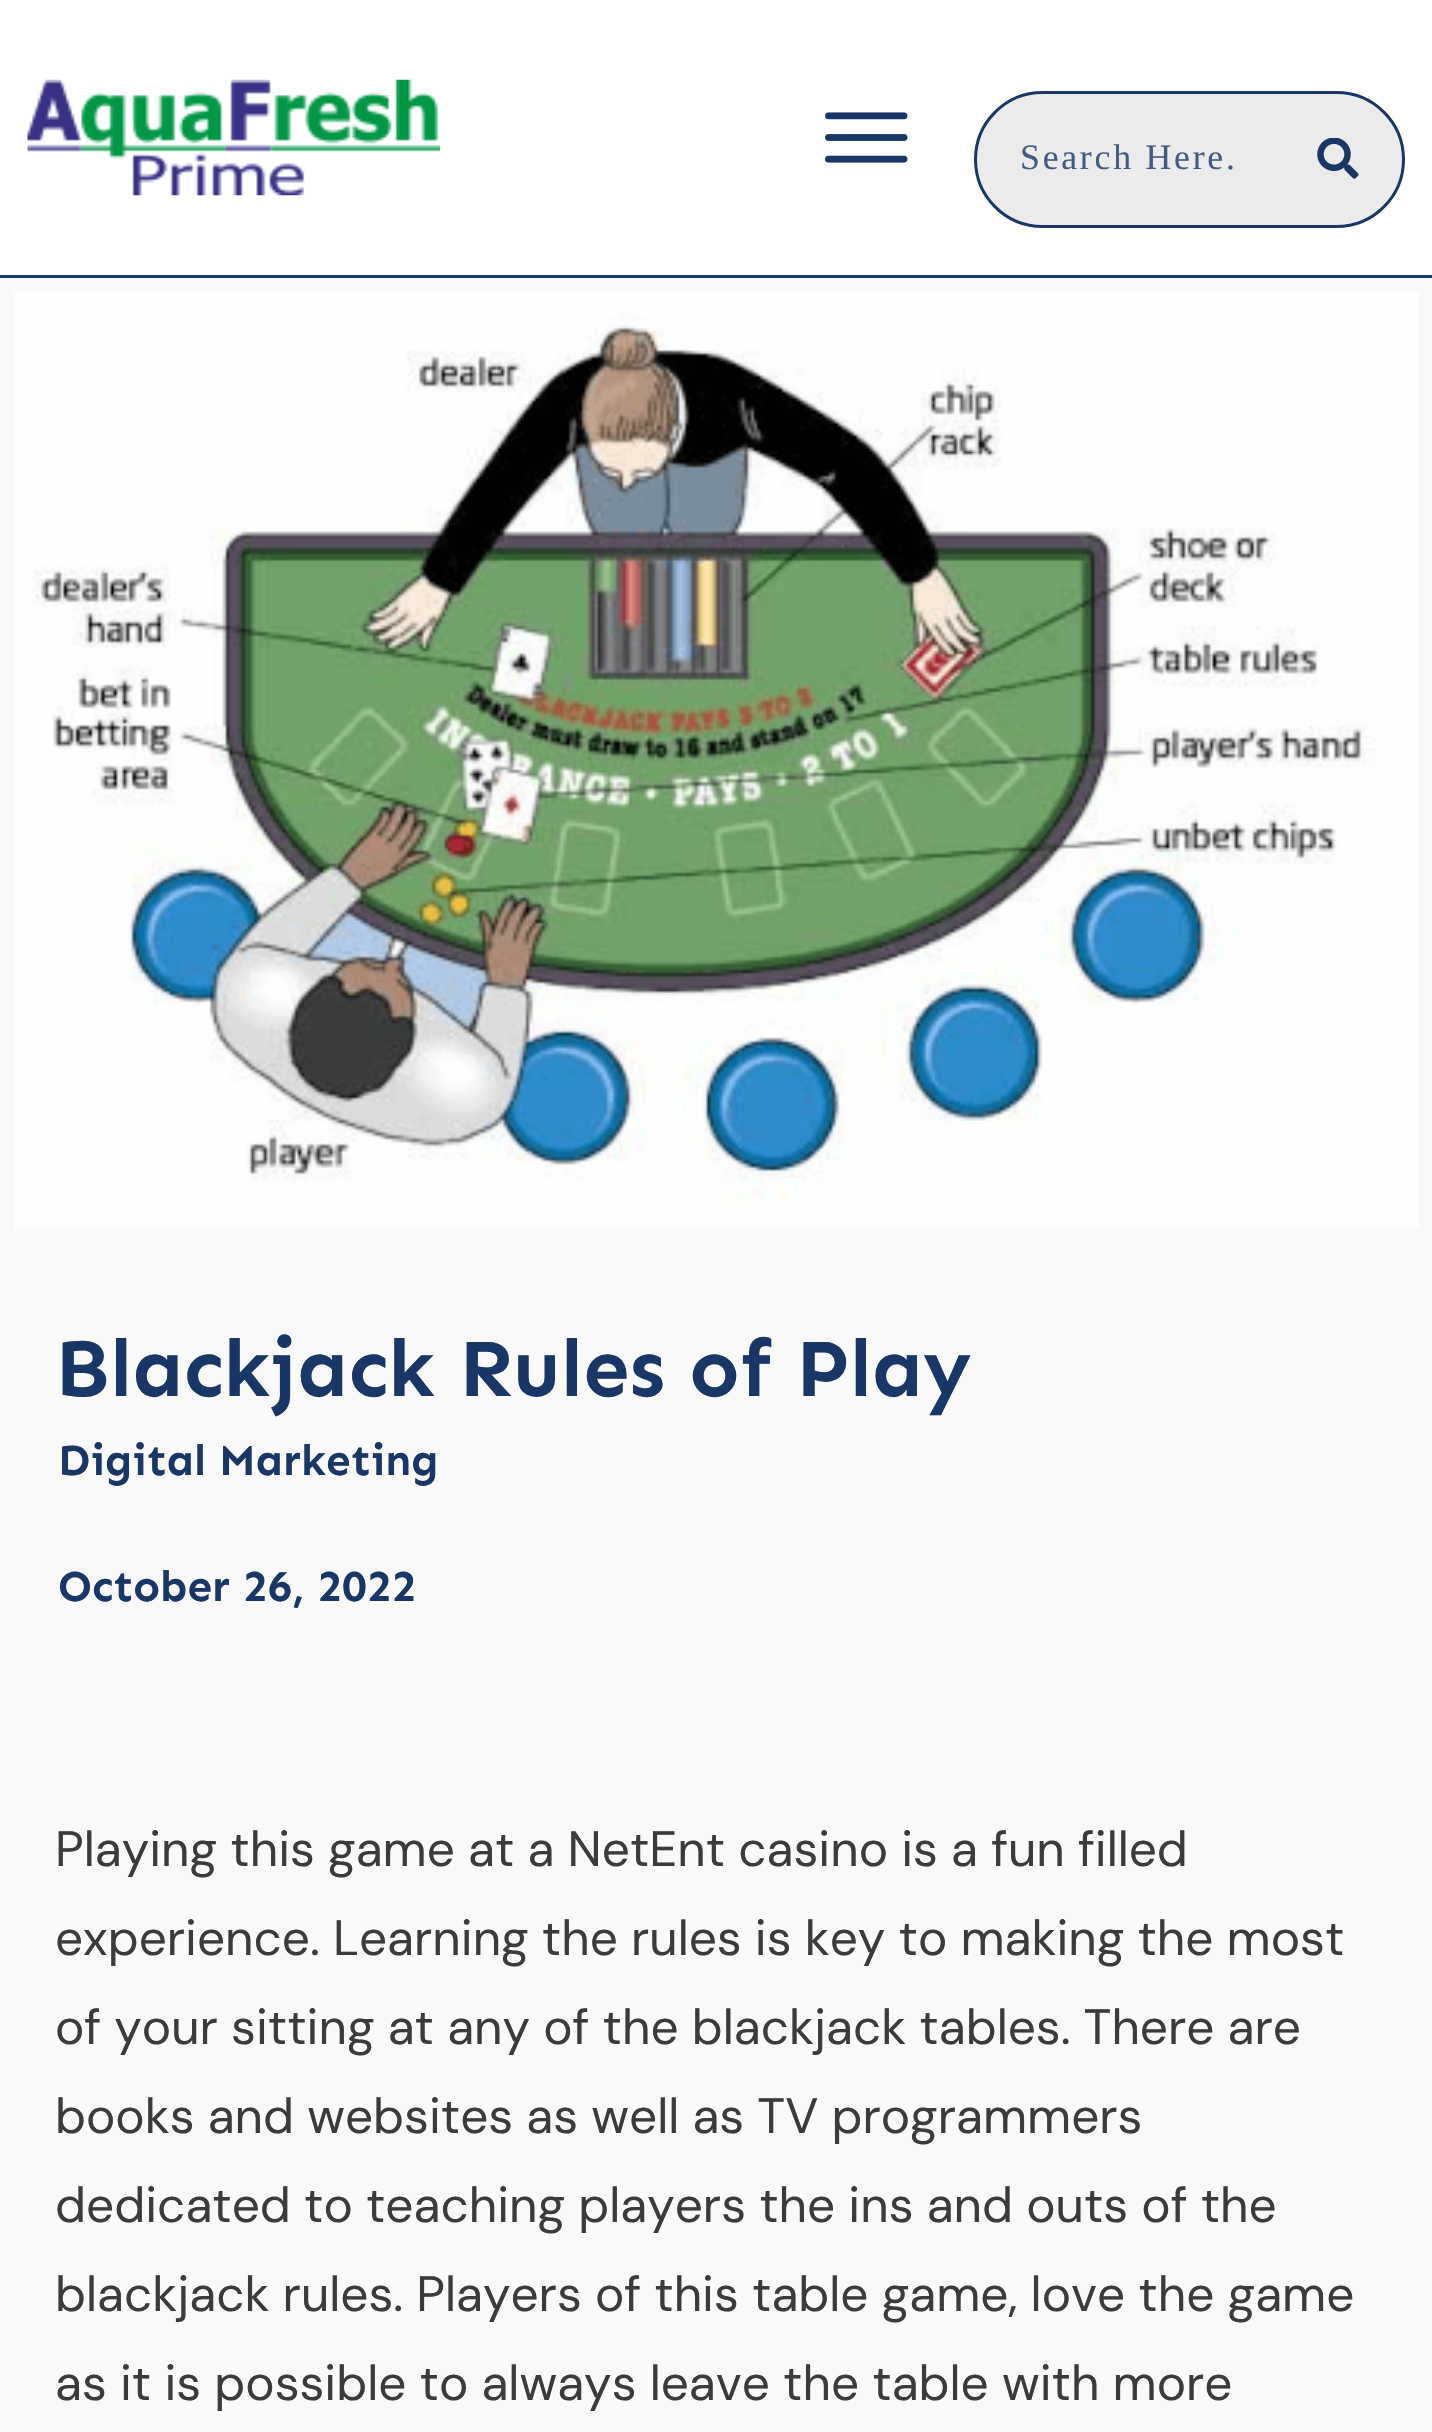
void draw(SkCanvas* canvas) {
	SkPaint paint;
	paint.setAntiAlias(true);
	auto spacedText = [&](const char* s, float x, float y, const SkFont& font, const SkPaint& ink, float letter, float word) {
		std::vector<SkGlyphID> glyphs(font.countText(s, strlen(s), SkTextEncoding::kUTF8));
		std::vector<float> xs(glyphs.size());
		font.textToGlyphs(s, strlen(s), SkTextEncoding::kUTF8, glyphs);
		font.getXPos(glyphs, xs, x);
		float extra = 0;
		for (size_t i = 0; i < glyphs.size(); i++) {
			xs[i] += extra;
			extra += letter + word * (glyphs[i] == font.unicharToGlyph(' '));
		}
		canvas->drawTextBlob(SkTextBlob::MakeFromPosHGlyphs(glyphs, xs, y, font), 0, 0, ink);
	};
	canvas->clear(0xfff9f9f9);
	paint.setColor(0xff193766);
	canvas->drawRect(SkRect::MakeXYWH(0, 275, 1432, 3), paint);
	paint.setColor(0xffffffff);
	canvas->drawRect(SkRect::MakeXYWH(0, 0, 1432, 275), paint);
	canvas->drawImageRect(SkImages::DeferredFromEncodedData(SkData::MakeFromFileName("img1.png")), SkRect::MakeXYWH(27, 79, 413, 117), SkSamplingOptions());
	canvas->drawImageRect(SkImages::DeferredFromEncodedData(SkData::MakeFromFileName("img2.png")), SkRect::MakeXYWH(825, 112, 83, 51), SkSamplingOptions());
	paint.setColor(0xffebebeb);
	canvas->drawRoundRect(SkRect::MakeXYWH(975.5, 92.5, 428, 134), 67, 67, paint);
	paint.setStroke(true);
	paint.setStrokeWidth(3);
	paint.setColor(0xff193766);
	canvas->drawRoundRect(SkRect::MakeXYWH(975.5, 92.5, 428, 134), 67, 67, paint);
	SkFont f1(fontMgr->matchFamilyStyle("Liberation Serif", SkFontStyle::Normal()), 35.75);
	f1.setSubpixel(true);
	paint.setStroke(false);
	paint.setColor(0xff435b81);
	spacedText("Search Here.", 1020, 169, f1, paint, 2.75, 0);
	canvas->drawImageRect(SkImages::DeferredFromEncodedData(SkData::MakeFromFileName("img3.png")), SkRect::MakeXYWH(1317, 138, 42, 41), SkSamplingOptions());
	canvas->drawImageRect(SkImages::DeferredFromEncodedData(SkData::MakeFromFileName("img4.png")), SkRect::MakeXYWH(14, 292, 1405, 937), SkSamplingOptions());
	SkFont f2(fontMgr->matchFamilyStyle("Sen", SkFontStyle::Bold()), 82.5);
	f2.setSubpixel(true);
	paint.setColor(0xff193766);
	canvas->drawString("Blackjack Rules of Play", 55, 1396, f2, paint);
	SkFont f3(fontMgr->matchFamilyStyle("Sen", SkFontStyle::Bold()), 44);
	f3.setSubpixel(true);
	canvas->drawString("Digital Marketing", 58, 1475, f3, paint);
	canvas->drawString("October 26, 2022", 58, 1601, f3, paint);
	SkFont f4(fontMgr->matchFamilyStyle("DM Sans", SkFontStyle::Normal()), 49.5);
	f4.setSubpixel(true);
	paint.setColor(0xff3b3b3b);
	canvas->drawString("Playing this game at a NetEnt casino is a fun filled", 55, 1866, f4, paint);
	canvas->drawString("experience. Learning the rules is key to making the most", 55, 1955, f4, paint);
	canvas->drawString("of your sitting at any of the blackjack tables. There are", 55, 2044, f4, paint);
	canvas->drawString("books and websites as well as TV programmers", 55, 2133, f4, paint);
	canvas->drawString("dedicated to teaching players the ins and outs of the", 55, 2222, f4, paint);
	canvas->drawString("blackjack rules. Players of this table game, love the game", 55, 2311, f4, paint);
	canvas->drawString("as it is possible to always leave the table with more", 55, 2400, f4, paint);
}
